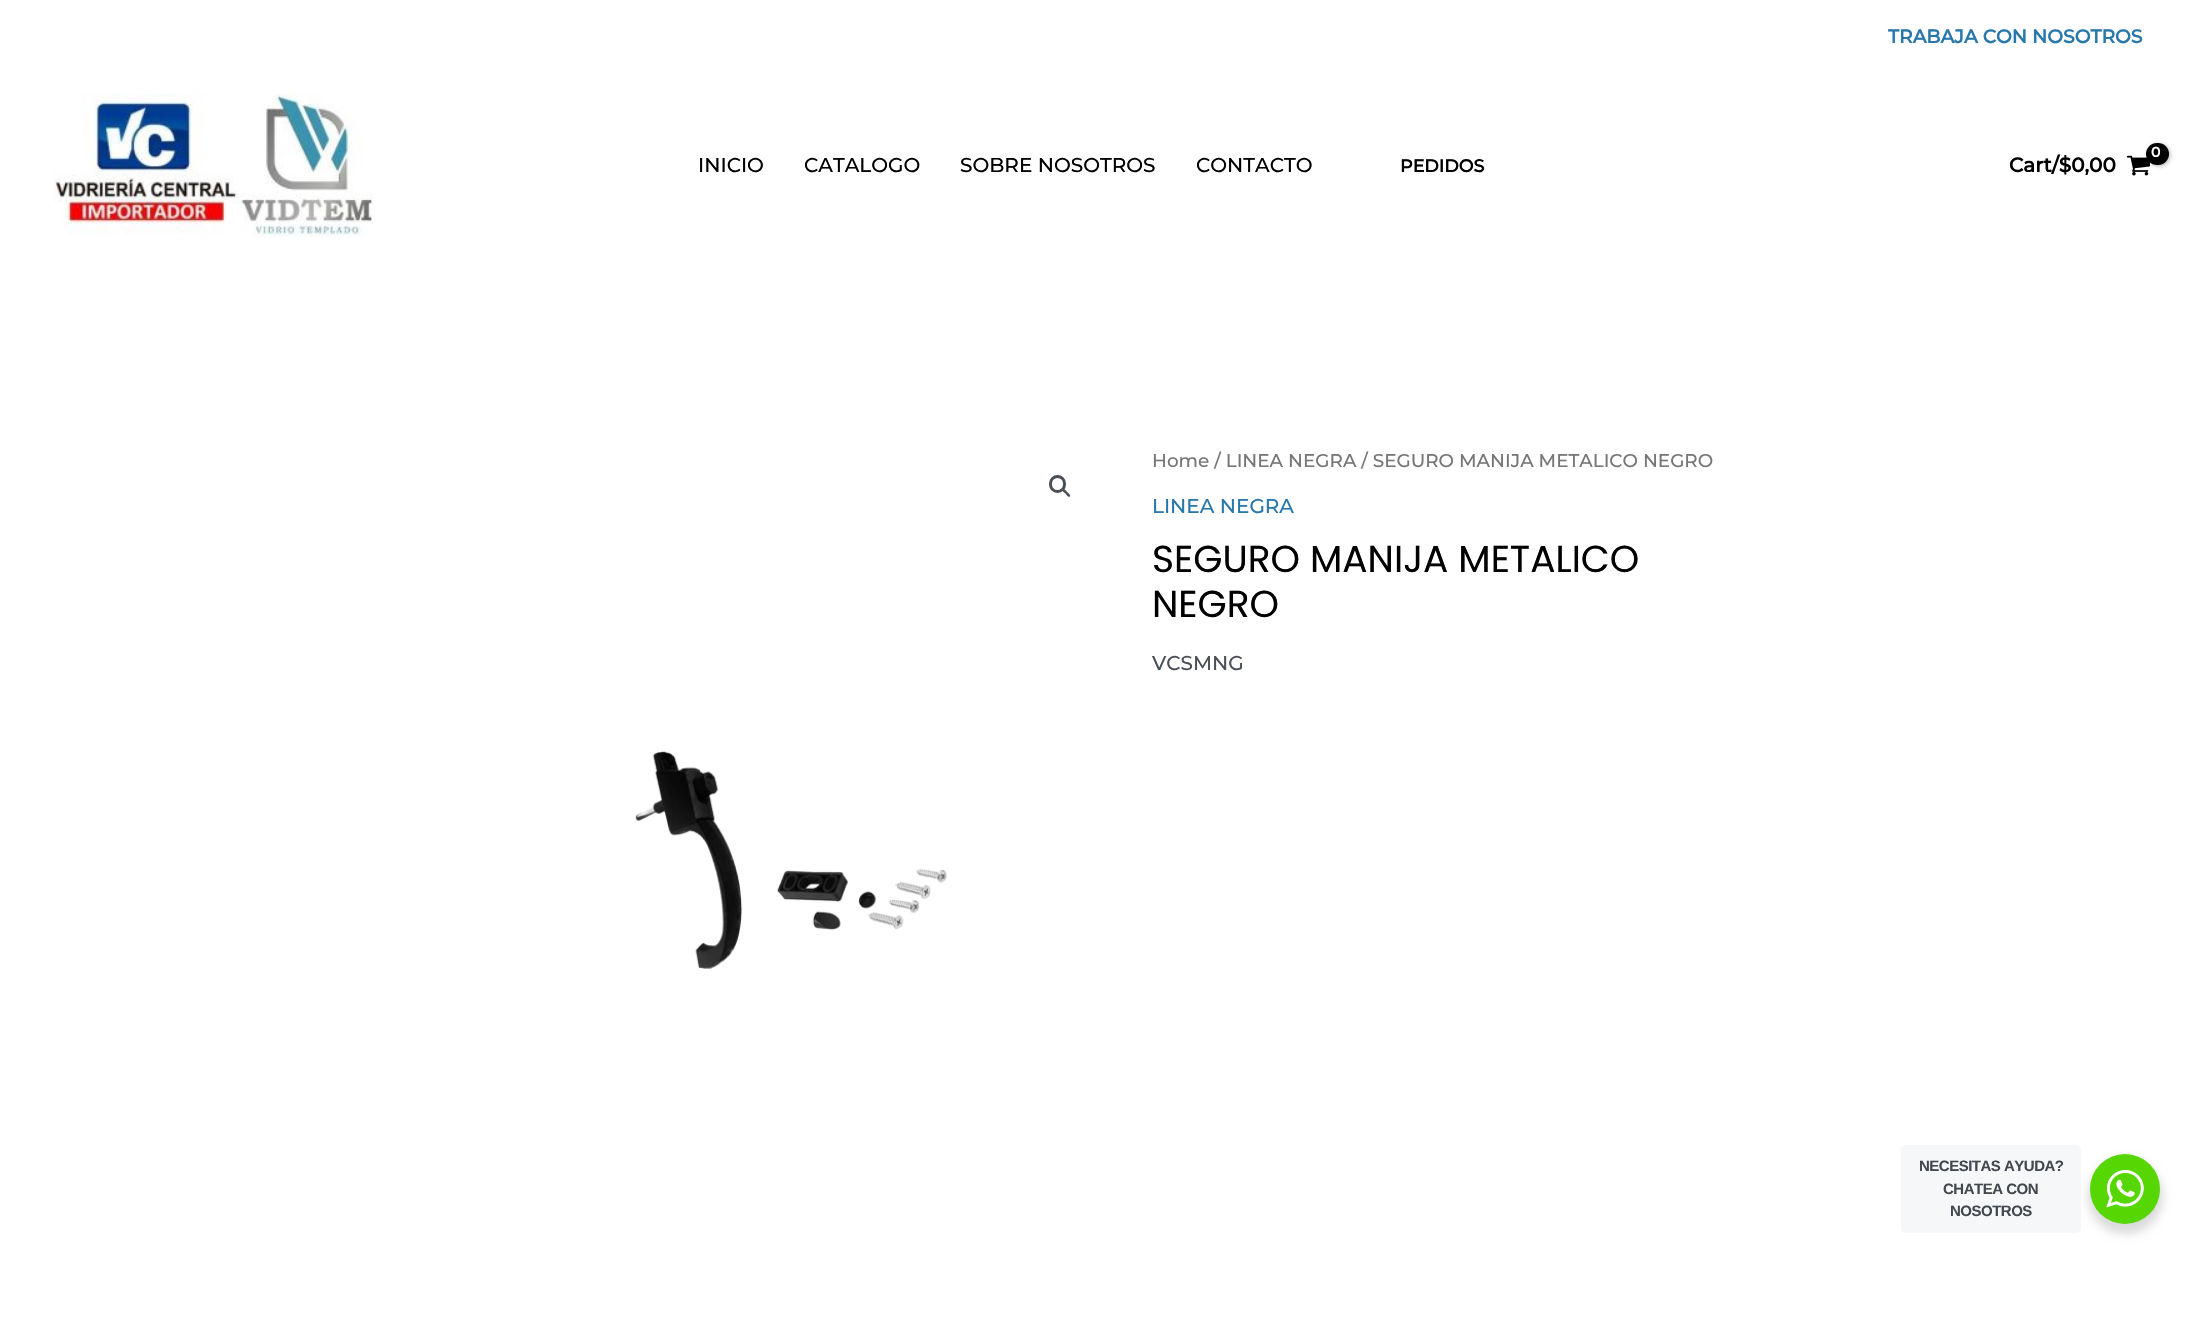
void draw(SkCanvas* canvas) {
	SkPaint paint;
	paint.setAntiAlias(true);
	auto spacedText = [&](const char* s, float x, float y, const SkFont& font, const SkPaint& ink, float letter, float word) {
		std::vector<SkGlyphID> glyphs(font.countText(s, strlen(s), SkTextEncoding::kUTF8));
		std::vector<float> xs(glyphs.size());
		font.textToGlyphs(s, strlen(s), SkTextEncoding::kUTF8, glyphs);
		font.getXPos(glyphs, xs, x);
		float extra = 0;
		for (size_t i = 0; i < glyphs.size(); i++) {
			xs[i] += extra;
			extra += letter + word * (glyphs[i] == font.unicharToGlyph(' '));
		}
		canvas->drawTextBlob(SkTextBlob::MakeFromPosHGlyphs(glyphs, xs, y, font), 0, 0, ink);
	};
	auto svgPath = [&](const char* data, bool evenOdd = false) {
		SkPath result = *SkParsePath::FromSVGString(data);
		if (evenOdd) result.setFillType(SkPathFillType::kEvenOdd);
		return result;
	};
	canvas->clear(0xffffffff);
	SkFont f1(fontMgr->matchFamilyStyle("Montserrat", SkFontStyle::Bold()), 18.75);
	f1.setSubpixel(true);
	paint.setColor(0xff2978ac);
	canvas->drawString("TRABAJA CON NOSOTROS", 1888, 43, f1, paint);
	canvas->drawImageRect(SkImages::DeferredFromEncodedData(SkData::MakeFromFileName("img1.png")), SkRect::MakeXYWH(53, 94, 321, 143), SkSamplingOptions());
	SkFont f2(fontMgr->matchFamilyStyle("Montserrat", SkFontStyle(100, SkFontStyle::kNormal_Width, SkFontStyle::kUpright_Slant)), 20);
	f2.setSubpixel(true);
	paint.setColor(0xff000000);
	canvas->drawString("INICIO", 698, 172, f2, paint);
	canvas->drawString("CATALOGO", 804, 172, f2, paint);
	canvas->drawString("SOBRE NOSOTROS", 960, 172, f2, paint);
	canvas->drawString("CONTACTO", 1196, 172, f2, paint);
	SkFont f3(fontMgr->matchFamilyStyle("Montserrat", SkFontStyle::Bold()), 17.5);
	f3.setSubpixel(true);
	canvas->drawString("PEDIDOS", 1400, 172, f3, paint);
	canvas->drawImageRect(SkImages::DeferredFromEncodedData(SkData::MakeFromFileName("img2.png")), SkRect::MakeXYWH(2126, 155, 24, 21), SkSamplingOptions());
	paint.setColor(0x4d000000);
	paint.setMaskFilter(SkMaskFilter::MakeBlur(kNormal_SkBlurStyle, 2));
	canvas->drawRoundRect(SkRect::MakeXYWH(2148, 144, 22, 22), 11, 11, paint);
	paint.setMaskFilter(nullptr);
	paint.setColor(0xff000000);
	canvas->drawRoundRect(SkRect::MakeXYWH(2146, 143, 23, 22), 11, 11, paint);
	SkFont f4(fontMgr->matchFamilyStyle("Montserrat", SkFontStyle::Bold()), 14);
	f4.setSubpixel(true);
	paint.setColor(0xffffffff);
	spacedText("0", 2151, 157, f4, paint, -1, 0);
	SkFont f5(fontMgr->matchFamilyStyle("Montserrat", SkFontStyle::Bold()), 20);
	f5.setSubpixel(true);
	paint.setColor(0xff000000);
	canvas->drawString("Cart/$0,00", 2009, 172, f5, paint);
	paint.setStroke(true);
	paint.setStrokeWidth(3);
	paint.setColor(0xff4b4f58);
	canvas->drawRoundRect(SkRect::MakeXYWH(1050.5, 476.5, 14, 15), 7, 7, paint);
	paint.setStroke(false);
	canvas->drawPath(svgPath("M1062.5 489.5C1064 488 1066.5 491 1067 492C1068 492.5 1071 495 1070 496.5C1068.5 498 1066 494.5 1065.5 493.5C1064.5 493 1061.5 490.5 1062.5 489.5Z"), paint);
	canvas->drawImageRect(SkImages::DeferredFromEncodedData(SkData::MakeFromFileName("img3.png")), SkRect::MakeXYWH(635, 751, 312, 218), SkSamplingOptions());
	SkFont f6(fontMgr->matchFamilyStyle("Montserrat", SkFontStyle(100, SkFontStyle::kNormal_Width, SkFontStyle::kUpright_Slant)), 18.4);
	f6.setSubpixel(true);
	paint.setColor(0xff777777);
	canvas->drawString("Home / LINEA NEGRA / SEGURO MANIJA METALICO NEGRO", 1152, 467, f6, paint);
	paint.setColor(0xff2978ac);
	canvas->drawString("LINEA NEGRA", 1152, 513, f2, paint);
	SkFont f7(fontMgr->matchFamilyStyle("Poppins", SkFontStyle::Normal()), 37.5);
	f7.setSubpixel(true);
	paint.setColor(0xff000000);
	canvas->drawString("SEGURO MANIJA METALICO", 1152, 572, f7, paint);
	canvas->drawString("NEGRO", 1152, 617, f7, paint);
	paint.setColor(0xff4b4f58);
	canvas->drawString("VCSMNG", 1152, 670, f2, paint);
	paint.setColor(0x24000000);
	paint.setMaskFilter(SkMaskFilter::MakeBlur(kNormal_SkBlurStyle, 5));
	canvas->drawRoundRect(SkRect::MakeXYWH(2088, 1159, 75, 75), 37.5, 37.5, paint);
	paint.setMaskFilter(nullptr);
	paint.setColor(0xfff5f7f9);
	canvas->drawRoundRect(SkRect::MakeXYWH(1901, 1145, 180, 88), 5, 5, paint);
	SkFont f8(fontMgr->matchFamilyStyle("Liberation Sans", SkFontStyle::Bold()), 15);
	f8.setSubpixel(true);
	paint.setColor(0xff43474e);
	spacedText("NECESITAS AYUDA?", 1919, 1171, f8, paint, -0.5, 0);
	spacedText("CHATEA CON", 1943, 1194, f8, paint, -0.5, 0);
	spacedText("NOSOTROS", 1950, 1216, f8, paint, -0.5, 0);
	paint.setColor(0xff56d602);
	canvas->drawCircle(2125, 1189, 35, paint);
	canvas->drawImageRect(SkImages::DeferredFromEncodedData(SkData::MakeFromFileName("img4.png")), SkRect::MakeXYWH(2106, 1170, 38, 38), SkSamplingOptions());
}
